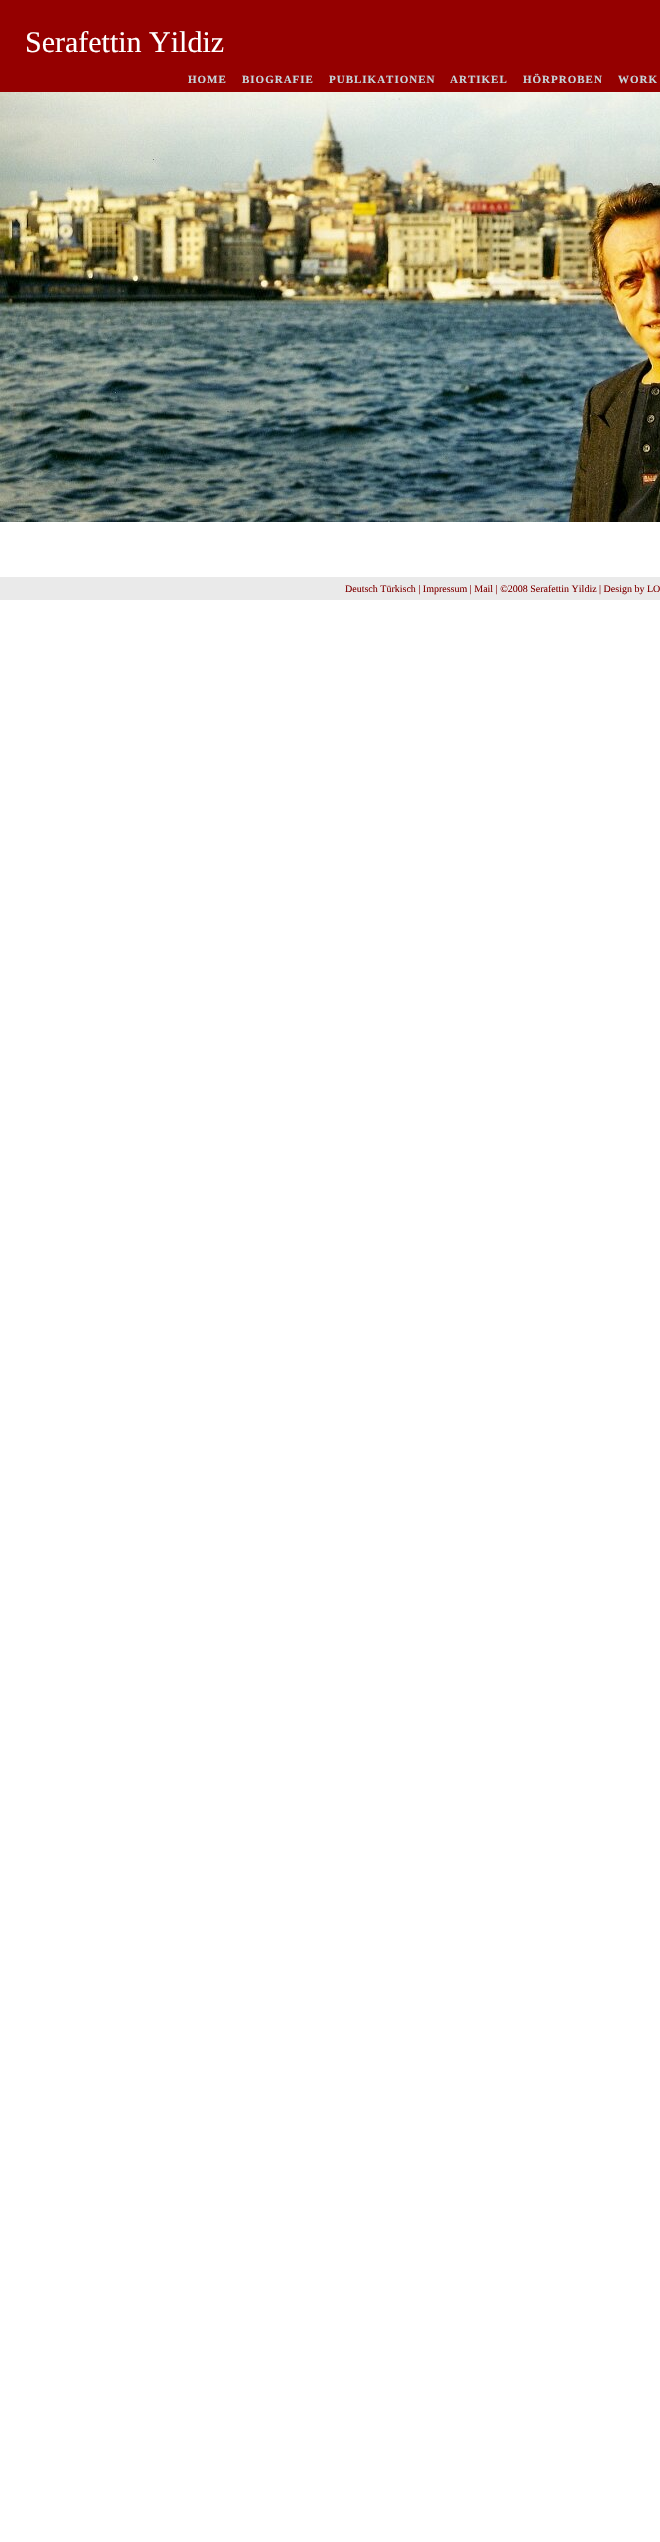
void draw(SkCanvas* canvas) {
	SkPaint paint;
	paint.setAntiAlias(true);
	auto spacedText = [&](const char* s, float x, float y, const SkFont& font, const SkPaint& ink, float letter, float word) {
		std::vector<SkGlyphID> glyphs(font.countText(s, strlen(s), SkTextEncoding::kUTF8));
		std::vector<float> xs(glyphs.size());
		font.textToGlyphs(s, strlen(s), SkTextEncoding::kUTF8, glyphs);
		font.getXPos(glyphs, xs, x);
		float extra = 0;
		for (size_t i = 0; i < glyphs.size(); i++) {
			xs[i] += extra;
			extra += letter + word * (glyphs[i] == font.unicharToGlyph(' '));
		}
		canvas->drawTextBlob(SkTextBlob::MakeFromPosHGlyphs(glyphs, xs, y, font), 0, 0, ink);
	};
	canvas->clear(0xffffffff);
	paint.setColor(0xff950000);
	canvas->drawRect(SkRect::MakeXYWH(0, 0, 660, 92), paint);
	SkFont f1(fontMgr->matchFamilyStyle("Liberation Serif", SkFontStyle::Normal()), 30);
	f1.setSubpixel(true);
	paint.setColor(0xffffffff);
	canvas->drawString("Serafettin Yildiz", 25, 52, f1, paint);
	SkFont f2(fontMgr->matchFamilyStyle("Liberation Serif", SkFontStyle::Bold()), 11);
	f2.setSubpixel(true);
	paint.setColor(0xffc5d6db);
	spacedText("HOME", 188, 83, f2, paint, 1, 0);
	spacedText("BIOGRAFIE", 242, 83, f2, paint, 1, 0);
	spacedText("PUBLIKATIONEN", 329, 83, f2, paint, 1, 0);
	spacedText("ARTIKEL", 450, 83, f2, paint, 1, 0);
	spacedText("HÖRPROBEN", 523, 83, f2, paint, 1, 0);
	spacedText("WORK", 618, 83, f2, paint, 1, 0);
	canvas->drawImageRect(SkImages::DeferredFromEncodedData(SkData::MakeFromFileName("img1.png")), SkRect::MakeXYWH(0, 92, 660, 430), SkSamplingOptions());
	paint.setColor(0xffeaeaea);
	canvas->drawRect(SkRect::MakeXYWH(0, 577, 660, 23), paint);
	SkFont f3(fontMgr->matchFamilyStyle("Liberation Serif", SkFontStyle::Normal()), 10);
	f3.setSubpixel(true);
	paint.setColor(0xff800000);
	canvas->drawString("Deutsch Türkisch | Impressum | Mail | ©2008 Serafettin Yildiz | Design by LO", 345, 592, f3, paint);
}
